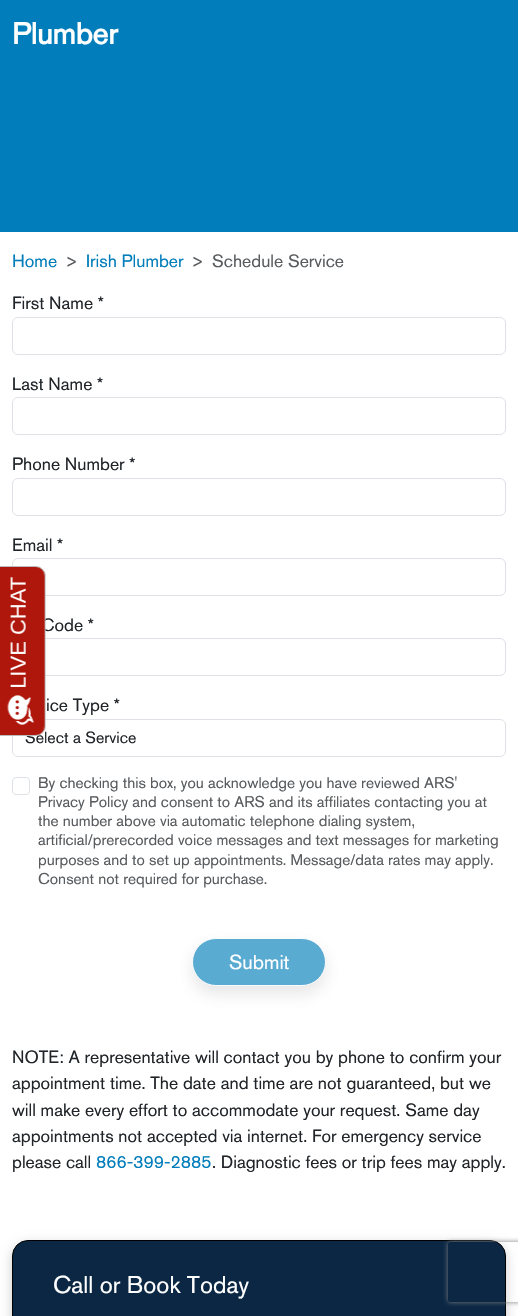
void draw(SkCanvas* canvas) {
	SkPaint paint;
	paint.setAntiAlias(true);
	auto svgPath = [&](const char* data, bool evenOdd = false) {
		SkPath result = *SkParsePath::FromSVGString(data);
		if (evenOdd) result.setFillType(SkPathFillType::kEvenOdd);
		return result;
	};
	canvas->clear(0xffffffff);
	paint.setColor(0xff007dba);
	canvas->drawRect(SkRect::MakeXYWH(0, 0, 518, 232), paint);
	SkFont f1(fontMgr->matchFamilyStyle("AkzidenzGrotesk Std", SkFontStyle::Bold()), 30);
	f1.setSubpixel(true);
	paint.setColor(0xffffffff);
	canvas->drawString("Plumber", 12, 44, f1, paint);
	SkFont f2(fontMgr->matchFamilyStyle("AkzidenzGrotesk Std", SkFontStyle::Normal()), 17.6);
	f2.setSubpixel(true);
	paint.setColor(0xff007dba);
	canvas->drawString("Home", 12, 267, f2, paint);
	paint.setColor(0xff595c5f);
	canvas->drawString(">", 65, 267, f2, paint);
	paint.setColor(0xff007dba);
	canvas->drawString("Irish Plumber", 86, 267, f2, paint);
	paint.setColor(0xff595c5f);
	canvas->drawString(">", 191, 267, f2, paint);
	canvas->drawString("Schedule Service", 212, 267, f2, paint);
	paint.setColor(0xff212529);
	canvas->drawString("First Name *", 12, 309, f2, paint);
	paint.setStroke(true);
	paint.setStrokeWidth(1);
	paint.setColor(0xffdee2e6);
	canvas->drawRoundRect(SkRect::MakeXYWH(12.5, 317.5, 493, 37), 5.5, 5.5, paint);
	paint.setStroke(false);
	paint.setColor(0xff212529);
	canvas->drawString("Last Name *", 12, 390, f2, paint);
	paint.setStroke(true);
	paint.setColor(0xffdee2e6);
	canvas->drawRoundRect(SkRect::MakeXYWH(12.5, 397.5, 493, 37), 5.5, 5.5, paint);
	paint.setStroke(false);
	paint.setColor(0xff212529);
	canvas->drawString("Phone Number *", 12, 470, f2, paint);
	paint.setStroke(true);
	paint.setColor(0xffdee2e6);
	canvas->drawRoundRect(SkRect::MakeXYWH(12.5, 478.5, 493, 37), 5.5, 5.5, paint);
	paint.setStroke(false);
	paint.setColor(0xff212529);
	canvas->drawString("Email *", 12, 551, f2, paint);
	paint.setStroke(true);
	paint.setColor(0xffdee2e6);
	canvas->drawRoundRect(SkRect::MakeXYWH(12.5, 558.5, 493, 37), 5.5, 5.5, paint);
	paint.setStroke(false);
	paint.setColor(0xff212529);
	canvas->drawString("Code *", 41, 631, f2, paint);
	paint.setStroke(true);
	paint.setColor(0xffdee2e6);
	canvas->drawRoundRect(SkRect::MakeXYWH(12.5, 638.5, 493, 37), 5.5, 5.5, paint);
	paint.setStroke(false);
	paint.setColor(0xff212529);
	canvas->drawString("ice Type *", 46, 711, f2, paint);
	paint.setStroke(true);
	paint.setColor(0xffdee2e6);
	canvas->drawRoundRect(SkRect::MakeXYWH(12.5, 719.5, 493, 37), 5.5, 5.5, paint);
	SkFont f3(fontMgr->matchFamilyStyle("AkzidenzGrotesk Std", SkFontStyle::Normal()), 16);
	f3.setSubpixel(true);
	paint.setStroke(false);
	paint.setColor(0xff212529);
	canvas->drawString("Select a Service", 25, 743, f3, paint);
	paint.setStroke(true);
	paint.setColor(0xffdee2e6);
	canvas->drawRoundRect(SkRect::MakeXYWH(12.5, 777.5, 17, 17), 3.5, 3.5, paint);
	SkFont f4(fontMgr->matchFamilyStyle("AkzidenzGrotesk Std", SkFontStyle::Normal()), 15.4);
	f4.setSubpixel(true);
	paint.setStroke(false);
	paint.setColor(0xff595c5f);
	canvas->drawString("By checking this box, you acknowledge you have reviewed ARS'", 38, 788, f4, paint);
	canvas->drawString("Privacy Policy and consent to ARS and its affiliates contacting you at", 38, 807, f4, paint);
	canvas->drawString("the number above via automatic telephone dialing system,", 38, 826, f4, paint);
	canvas->drawString("artificial/prerecorded voice messages and text messages for marketing", 38, 845, f4, paint);
	canvas->drawString("purposes and to set up appointments. Message/data rates may apply.", 38, 865, f4, paint);
	canvas->drawString("Consent not required for purchase.", 38, 884, f4, paint);
	paint.setColor(0x26595959);
	paint.setMaskFilter(SkMaskFilter::MakeBlur(kNormal_SkBlurStyle, 8));
	canvas->drawRoundRect(SkRect::MakeXYWH(192, 946, 134, 48), 24, 24, paint);
	paint.setMaskFilter(nullptr);
	paint.setColor(0xff59abd2);
	canvas->drawRoundRect(SkRect::MakeXYWH(192.5, 938.5, 133, 47), 23.5, 23.5, paint);
	paint.setStroke(true);
	paint.setColor(0xfffafbfc);
	canvas->drawRoundRect(SkRect::MakeXYWH(192.5, 938.5, 133, 47), 23.5, 23.5, paint);
	SkFont f5(fontMgr->matchFamilyStyle("AkzidenzGrotesk Std", SkFontStyle::Normal()), 20);
	f5.setSubpixel(true);
	paint.setStroke(false);
	paint.setColor(0xffffffff);
	canvas->drawString("Submit", 229, 969, f5, paint);
	paint.setColor(0xff212529);
	canvas->drawString("NOTE: A representative will contact you by phone to confirm your", 12, 1063, f2, paint);
	canvas->drawString("appointment time. The date and time are not guaranteed, but we", 12, 1089, f2, paint);
	canvas->drawString("will make every effort to accommodate your request. Same day", 12, 1116, f2, paint);
	canvas->drawString("appointments not accepted via internet. For emergency service", 12, 1142, f2, paint);
	canvas->drawString("please call", 12, 1168, f2, paint);
	paint.setColor(0xff007dba);
	canvas->drawString("866-399-2885", 96, 1168, f2, paint);
	paint.setColor(0xff212529);
	canvas->drawString(". Diagnostic fees or trip fees may apply.", 212, 1168, f2, paint);
	paint.setColor(0x33000000);
	paint.setMaskFilter(SkMaskFilter::MakeBlur(kNormal_SkBlurStyle, 6));
	canvas->drawRoundRect(SkRect::MakeXYWH(12, 1244, 494, 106), 16, 16, paint);
	paint.setMaskFilter(nullptr);
	paint.setColor(0xff0b2744);
	canvas->drawRoundRect(SkRect::MakeXYWH(12.5, 1240.5, 493, 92), 15.5, 15.5, paint);
	paint.setStroke(true);
	paint.setColor(0xff000000);
	canvas->drawRoundRect(SkRect::MakeXYWH(12.5, 1240.5, 493, 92), 15.5, 15.5, paint);
	SkFont f6(fontMgr->matchFamilyStyle("AkzidenzGrotesk Std", SkFontStyle::Normal()), 24);
	f6.setSubpixel(true);
	paint.setStroke(false);
	paint.setColor(0xffffffff);
	canvas->drawString("Call or Book Today", 53, 1293, f6, paint);
	canvas->drawImageRect(SkImages::DeferredFromEncodedData(SkData::MakeFromFileName("img1.png")), SkRect::MakeXYWH(0, 566, 46, 170), SkSamplingOptions());
	canvas->save();
	canvas->clipPath(svgPath("M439 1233H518V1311H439ZM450 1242H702C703 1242 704 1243 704 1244V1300C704 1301 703 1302 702 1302H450C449 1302 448 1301 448 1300V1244C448 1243 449 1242 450 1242Z", true), true);
	paint.setColor(0xff808080);
	paint.setMaskFilter(SkMaskFilter::MakeBlur(kNormal_SkBlurStyle, 2.5));
	canvas->drawRoundRect(SkRect::MakeXYWH(448, 1242, 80, 60), 2, 2, paint);
	paint.setMaskFilter(nullptr);
	canvas->restore();
}
